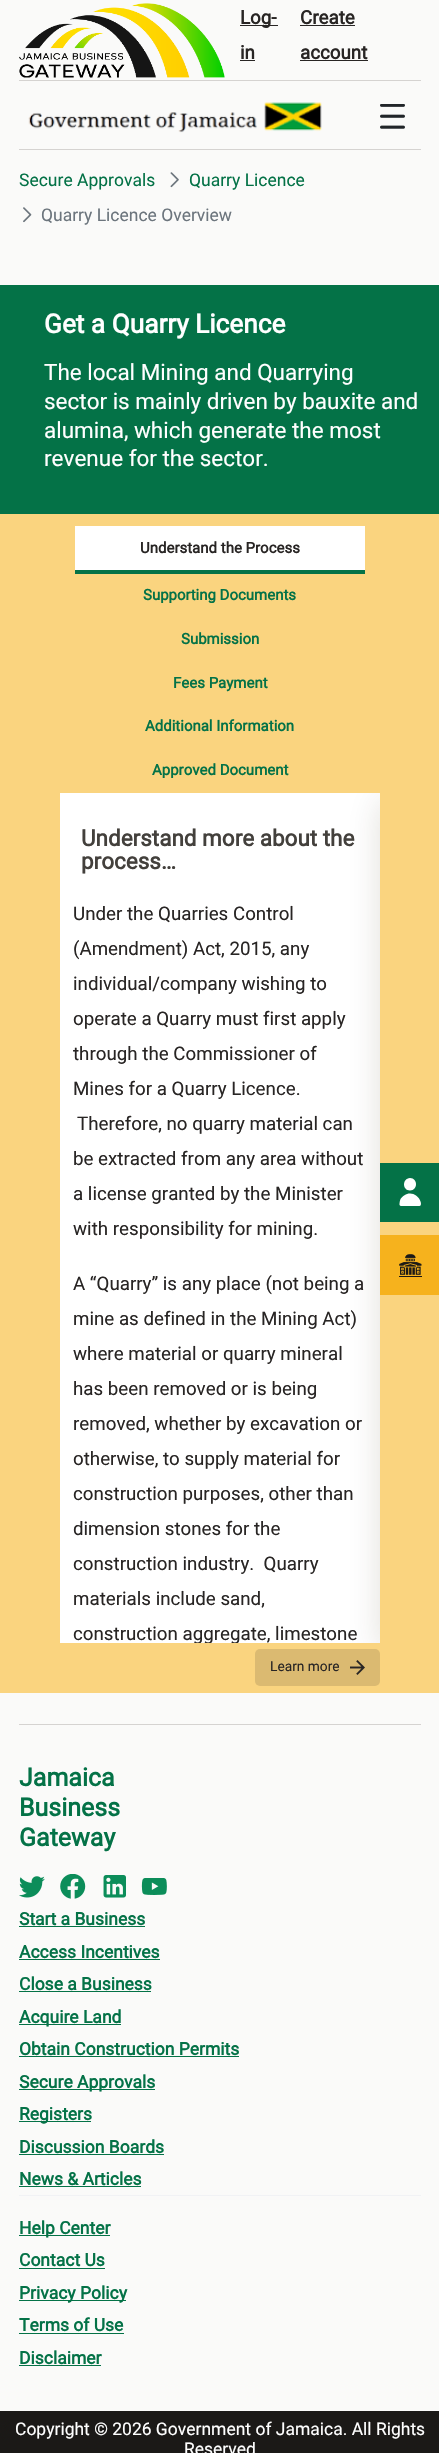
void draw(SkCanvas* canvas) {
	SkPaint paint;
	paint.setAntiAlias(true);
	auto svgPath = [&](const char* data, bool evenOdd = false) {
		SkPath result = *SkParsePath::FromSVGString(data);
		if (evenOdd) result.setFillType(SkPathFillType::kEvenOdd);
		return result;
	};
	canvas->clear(0xfffafaf9);
	canvas->drawImageRect(SkImages::DeferredFromEncodedData(SkData::MakeFromFileName("img1.png")), SkRect::MakeXYWH(19, 3, 206, 75), SkSamplingOptions());
	paint.setColor(0xff282524);
	canvas->drawRect(SkRect::MakeXYWH(240, 25, 38, 1), paint);
	SkFont f1(fontMgr->matchFamilyStyle("Roboto", SkFontStyle::Bold()), 18.75);
	f1.setSubpixel(true);
	canvas->drawString("Log-", 240, 24, f1, paint);
	canvas->drawString("in", 240, 59, f1, paint);
	canvas->drawRect(SkRect::MakeXYWH(240, 60, 15, 1), paint);
	canvas->drawString("Create", 300, 24, f1, paint);
	canvas->drawRect(SkRect::MakeXYWH(300, 25, 55, 1), paint);
	canvas->drawString("account", 300, 59, f1, paint);
	canvas->drawRect(SkRect::MakeXYWH(300, 60, 68, 1), paint);
	paint.setColor(0xffd5d3d1);
	canvas->drawRect(SkRect::MakeXYWH(19, 80, 402, 1), paint);
	canvas->drawRect(SkRect::MakeXYWH(19, 149, 402, 1), paint);
	canvas->drawImageRect(SkImages::DeferredFromEncodedData(SkData::MakeFromFileName("img2.png")), SkRect::MakeXYWH(28, 102, 294, 31), SkSamplingOptions());
	canvas->drawImageRect(SkImages::DeferredFromEncodedData(SkData::MakeFromFileName("img3.png")), SkRect::MakeXYWH(380, 104, 25, 25), SkSamplingOptions());
	SkFont f2(fontMgr->matchFamilyStyle("Roboto", SkFontStyle::Normal()), 17.5);
	f2.setSubpixel(true);
	paint.setColor(0xff047247);
	canvas->drawString("Secure Approvals", 19, 186, f2, paint);
	canvas->drawImageRect(SkImages::DeferredFromEncodedData(SkData::MakeFromFileName("img4.png")), SkRect::MakeXYWH(170, 172, 9, 16), SkSamplingOptions());
	canvas->drawString("Quarry Licence", 189, 186, f2, paint);
	canvas->drawImageRect(SkImages::DeferredFromEncodedData(SkData::MakeFromFileName("img5.png")), SkRect::MakeXYWH(23, 207, 9, 16), SkSamplingOptions());
	paint.setColor(0xff6c757d);
	canvas->drawString("Quarry Licence Overview", 41, 221, f2, paint);
	paint.setColor(0xff047247);
	canvas->drawRect(SkRect::MakeXYWH(0, 285, 439, 229), paint);
	SkFont f3(fontMgr->matchFamilyStyle("Roboto", SkFontStyle::Bold()), 26.25);
	f3.setSubpixel(true);
	paint.setColor(0xffffffff);
	canvas->drawString("Get a Quarry Licence", 44, 333, f3, paint);
	SkFont f4(fontMgr->matchFamilyStyle("Roboto", SkFontStyle::Normal()), 22.5);
	f4.setSubpixel(true);
	canvas->drawString("The local Mining and Quarrying", 44, 380, f4, paint);
	canvas->drawString("sector is mainly driven by bauxite and", 44, 409, f4, paint);
	canvas->drawString("alumina, which generate the most", 44, 438, f4, paint);
	canvas->drawString("revenue for the sector.", 44, 466, f4, paint);
	paint.setColor(0xfffad47f);
	canvas->drawRect(SkRect::MakeXYWH(0, 514, 439, 1179), paint);
	paint.setColor(0xffffffff);
	canvas->drawRect(SkRect::MakeXYWH(75, 526, 290, 44), paint);
	paint.setColor(0xff047247);
	canvas->drawRect(SkRect::MakeXYWH(75, 570, 290, 4), paint);
	SkFont f5(fontMgr->matchFamilyStyle("Roboto", SkFontStyle::Bold()), 15);
	f5.setSubpixel(true);
	paint.setColor(0xff282524);
	canvas->drawString("Understand the Process", 140, 553, f5, paint);
	paint.setColor(0xff047247);
	canvas->drawString("Supporting Documents", 143, 600, f5, paint);
	canvas->drawString("Submission", 181, 644, f5, paint);
	canvas->drawString("Fees Payment", 173, 688, f5, paint);
	canvas->drawString("Additional Information", 145, 731, f5, paint);
	canvas->drawString("Approved Document", 152, 775, f5, paint);
	paint.setColor(0xffffffff);
	canvas->drawRect(SkRect::MakeXYWH(60, 793, 320, 850), paint);
	paint.setColor(0xffdbba71);
	canvas->drawRoundRect(SkRect::MakeXYWH(255, 1649, 125, 37), 5, 5, paint);
	canvas->drawImageRect(SkImages::DeferredFromEncodedData(SkData::MakeFromFileName("img6.png")), SkRect::MakeXYWH(350, 1660, 15, 15), SkSamplingOptions());
	canvas->save();
	canvas->clipRect(SkRect::MakeXYWH(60, 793, 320, 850));
	paint.setColor(0x2633250b);
	paint.setMaskFilter(SkMaskFilter::MakeBlur(kNormal_SkBlurStyle, 15.5));
	canvas->drawRect(SkRect::MakeXYWH(380, 801, 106, 850), paint);
	paint.setMaskFilter(nullptr);
	canvas->restore();
	SkFont f6(fontMgr->matchFamilyStyle("Roboto", SkFontStyle::Bold()), 22.5);
	f6.setSubpixel(true);
	paint.setColor(0xff43403c);
	canvas->drawString("Understand more about the", 81, 846, f6, paint);
	canvas->drawString("process…", 81, 869, f6, paint);
	SkFont f7(fontMgr->matchFamilyStyle("Roboto", SkFontStyle::Normal()), 18.75);
	f7.setSubpixel(true);
	paint.setColor(0xff282524);
	canvas->drawString("Under the Quarries Control", 73, 920, f7, paint);
	canvas->drawString("(Amendment) Act, 2015, any", 73, 955, f7, paint);
	canvas->drawString("individual/company wishing to", 73, 990, f7, paint);
	canvas->drawString("operate a Quarry must first apply", 73, 1025, f7, paint);
	canvas->drawString("through the Commissioner of", 73, 1060, f7, paint);
	canvas->drawString("Mines for a Quarry Licence.", 73, 1095, f7, paint);
	canvas->drawString("Therefore, no quarry material can", 77, 1130, f7, paint);
	canvas->drawString("be extracted from any area without", 73, 1165, f7, paint);
	canvas->drawString("a license granted by the Minister", 73, 1200, f7, paint);
	canvas->drawString("with responsibility for mining.", 73, 1235, f7, paint);
	canvas->drawString("A “Quarry” is any place (not being a", 73, 1290, f7, paint);
	canvas->drawString("mine as defined in the Mining Act)", 73, 1325, f7, paint);
	canvas->drawString("where material or quarry mineral", 73, 1360, f7, paint);
	canvas->drawString("has been removed or is being", 73, 1395, f7, paint);
	canvas->drawString("removed, whether by excavation or", 73, 1430, f7, paint);
	canvas->drawString("otherwise, to supply material for", 73, 1465, f7, paint);
	canvas->drawString("construction purposes, other than", 73, 1500, f7, paint);
	canvas->drawString("dimension stones for the", 73, 1535, f7, paint);
	canvas->drawString("construction industry.  Quarry", 73, 1570, f7, paint);
	canvas->drawString("materials include sand,", 73, 1605, f7, paint);
	canvas->save();
	canvas->clipRect(SkRect::MakeXYWH(60, 793, 320, 850));
	canvas->drawString("construction aggregate, limestone", 73, 1640, f7, paint);
	canvas->restore();
	SkFont f8(fontMgr->matchFamilyStyle("Roboto", SkFontStyle::Normal()), 13.75);
	f8.setSubpixel(true);
	canvas->drawString("Learn more", 270, 1671, f8, paint);
	paint.setColor(0xff047247);
	canvas->drawRect(SkRect::MakeXYWH(380, 1163, 59, 59), paint);
	paint.setColor(0xffffffff);
	canvas->drawPath(svgPath("M410 1190.5C418 1190.5 418 1178 410 1178C402 1178.5 402 1190.5 410 1190.5ZM419.5 1206C423.5 1206 419.5 1193.5 410 1193.5C406 1193.5 402.5 1196 400.5 1199C400 1200.5 399.5 1202 399.5 1203.5C399 1206.5 401 1206 404 1206Z"), paint);
	canvas->drawImageRect(SkImages::DeferredFromEncodedData(SkData::MakeFromFileName("img7.png")), SkRect::MakeXYWH(380, 1235, 59, 60), SkSamplingOptions());
	paint.setColor(0xffd5d3d1);
	canvas->drawRect(SkRect::MakeXYWH(19, 1724, 402, 1), paint);
	SkFont f9(fontMgr->matchFamilyStyle("Roboto", SkFontStyle::Bold()), 25);
	f9.setSubpixel(true);
	paint.setColor(0xff047247);
	canvas->drawString("Jamaica", 19, 1786, f9, paint);
	canvas->drawString("Business", 19, 1816, f9, paint);
	canvas->drawString("Gateway", 19, 1846, f9, paint);
	canvas->drawImageRect(SkImages::DeferredFromEncodedData(SkData::MakeFromFileName("img8.png")), SkRect::MakeXYWH(19, 1876, 26, 22), SkSamplingOptions());
	canvas->drawImageRect(SkImages::DeferredFromEncodedData(SkData::MakeFromFileName("img9.png")), SkRect::MakeXYWH(60, 1874, 26, 25), SkSamplingOptions());
	canvas->drawImageRect(SkImages::DeferredFromEncodedData(SkData::MakeFromFileName("img10.png")), SkRect::MakeXYWH(103, 1875, 23, 23), SkSamplingOptions());
	canvas->drawImageRect(SkImages::DeferredFromEncodedData(SkData::MakeFromFileName("img11.png")), SkRect::MakeXYWH(141, 1878, 26, 17), SkSamplingOptions());
	SkFont f10(fontMgr->matchFamilyStyle("Roboto", SkFontStyle::Bold()), 17.5);
	f10.setSubpixel(true);
	canvas->drawString("Start a Business", 19, 1925, f10, paint);
	canvas->drawRect(SkRect::MakeXYWH(19, 1926, 126, 1), paint);
	canvas->drawString("Access Incentives", 19, 1958, f10, paint);
	canvas->drawRect(SkRect::MakeXYWH(19, 1959, 141, 1), paint);
	canvas->drawString("Close a Business", 19, 1990, f10, paint);
	canvas->drawRect(SkRect::MakeXYWH(19, 1991, 132, 1), paint);
	canvas->drawRect(SkRect::MakeXYWH(19, 2024, 102, 1), paint);
	canvas->drawString("Acquire Land", 19, 2023, f10, paint);
	canvas->drawString("Obtain Construction Permits", 19, 2055, f10, paint);
	canvas->drawRect(SkRect::MakeXYWH(19, 2056, 220, 1), paint);
	canvas->drawRect(SkRect::MakeXYWH(19, 2089, 136, 1), paint);
	canvas->drawString("Secure Approvals", 19, 2088, f10, paint);
	canvas->drawRect(SkRect::MakeXYWH(19, 2121, 72, 1), paint);
	canvas->drawString("Registers", 19, 2120, f10, paint);
	canvas->drawString("Discussion Boards", 19, 2153, f10, paint);
	canvas->drawRect(SkRect::MakeXYWH(19, 2154, 145, 1), paint);
	canvas->drawString("News & Articles", 19, 2185, f10, paint);
	canvas->drawRect(SkRect::MakeXYWH(19, 2186, 122, 1), paint);
	paint.setColor(0xfff1f2f5);
	canvas->drawRect(SkRect::MakeXYWH(19, 2195, 402, 1), paint);
	paint.setColor(0xff047247);
	canvas->drawRect(SkRect::MakeXYWH(19, 2235, 91, 1), paint);
	canvas->drawString("Help Center", 19, 2234, f10, paint);
	canvas->drawString("Contact Us", 19, 2266, f10, paint);
	canvas->drawRect(SkRect::MakeXYWH(19, 2268, 86, 1), paint);
	canvas->drawRect(SkRect::MakeXYWH(19, 2300, 107, 1), paint);
	canvas->drawString("Privacy Policy", 19, 2299, f10, paint);
	canvas->drawString("Terms of Use", 19, 2331, f10, paint);
	canvas->drawRect(SkRect::MakeXYWH(19, 2333, 105, 1), paint);
	canvas->drawString("Disclaimer", 19, 2364, f10, paint);
	canvas->drawRect(SkRect::MakeXYWH(19, 2365, 82, 1), paint);
	paint.setColor(0xff1b1917);
	canvas->drawRect(SkRect::MakeXYWH(0, 2411, 439, 42), paint);
	paint.setColor(0xffffffff);
	canvas->drawString("Copyright © 2026 Government of Jamaica. All Rights", 15, 2435, f2, paint);
	canvas->drawString("Reserved", 184, 2455, f2, paint);
}
